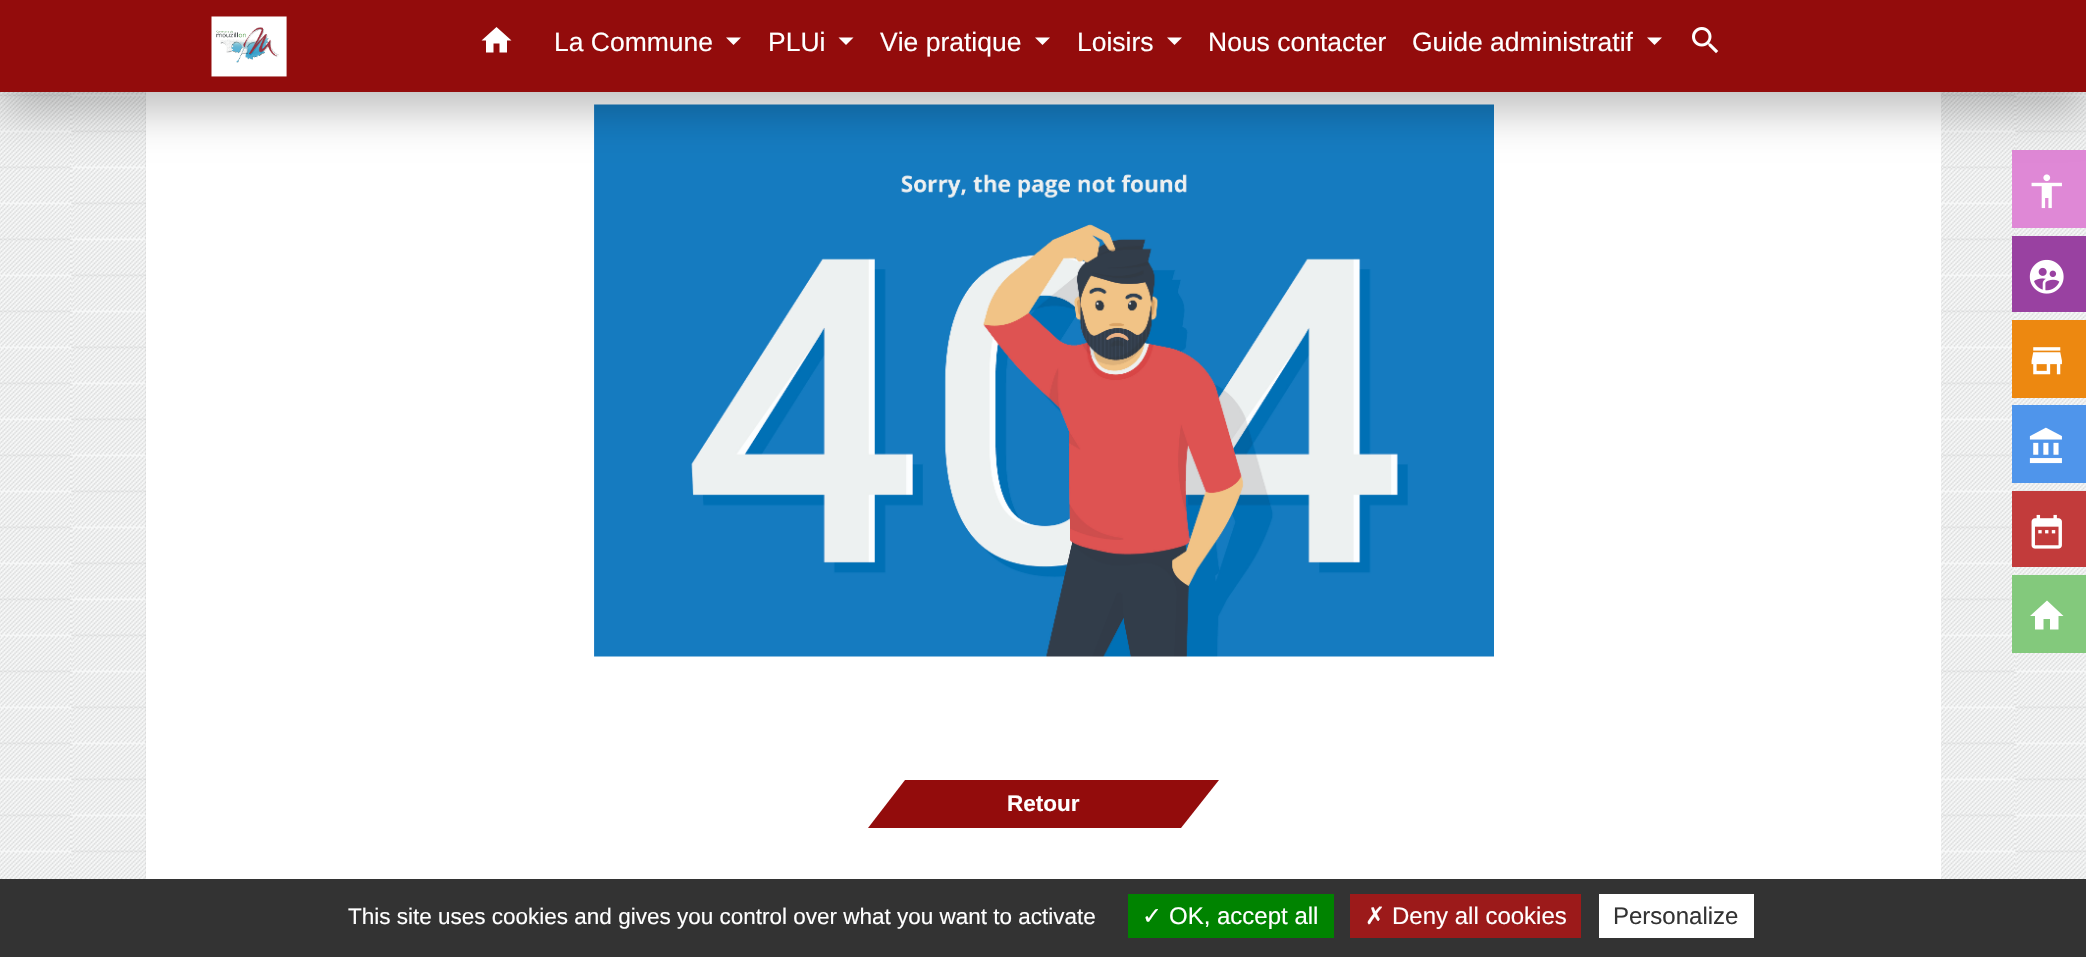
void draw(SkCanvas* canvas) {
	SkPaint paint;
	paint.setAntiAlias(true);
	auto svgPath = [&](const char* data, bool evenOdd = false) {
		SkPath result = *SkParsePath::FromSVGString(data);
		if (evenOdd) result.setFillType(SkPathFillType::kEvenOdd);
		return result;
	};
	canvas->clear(0xfff7f8f8);
	canvas->drawImageRect(SkImages::DeferredFromEncodedData(SkData::MakeFromFileName("img1.png")), SkRect::MakeXYWH(0, 92, 2086, 787), SkSamplingOptions());
	paint.setColor(0xffdf88d6);
	canvas->drawRect(SkRect::MakeXYWH(2012, 150, 74, 78), paint);
	canvas->drawImageRect(SkImages::DeferredFromEncodedData(SkData::MakeFromFileName("img4.png")), SkRect::MakeXYWH(2031, 174, 31, 35), SkSamplingOptions());
	canvas->drawImageRect(SkImages::DeferredFromEncodedData(SkData::MakeFromFileName("img9.png")), SkRect::MakeXYWH(145, 92, 1, 787), SkSamplingOptions());
	canvas->drawImageRect(SkImages::DeferredFromEncodedData(SkData::MakeFromFileName("img10.png")), SkRect::MakeXYWH(145, 92, 1, 787), SkSamplingOptions());
	paint.setColor(0xffffffff);
	canvas->drawRect(SkRect::MakeXYWH(146, 92, 1795, 787), paint);
	canvas->drawImageRect(SkImages::DeferredFromEncodedData(SkData::MakeFromFileName("img11.png")), SkRect::MakeXYWH(594, 104, 900, 553), SkSamplingOptions());
	paint.setColor(0x40000000);
	paint.setMaskFilter(SkMaskFilter::MakeBlur(kNormal_SkBlurStyle, 22));
	canvas->drawRect(SkRect::MakeXYWH(0, 20, 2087, 91), paint);
	paint.setMaskFilter(nullptr);
	paint.setColor(0xff930c0c);
	canvas->drawRect(SkRect::MakeXYWH(0, 0, 2086, 92), paint);
	canvas->drawImageRect(SkImages::DeferredFromEncodedData(SkData::MakeFromFileName("img2.png")), SkRect::MakeXYWH(211, 16, 76, 61), SkSamplingOptions());
	paint.setColor(0xffffffff);
	canvas->drawPath(svgPath("M493.5 52.5H486V40.5H481.5L496.5 27L511.5 40.5H507V52.5H499.5V43.5H493.5Z"), paint);
	SkFont f1(fontMgr->matchFamilyStyle("Liberation Sans", SkFontStyle::Normal()), 26.5);
	f1.setSubpixel(true);
	canvas->drawString("La Commune", 554, 51, f1, paint);
	canvas->drawPath(svgPath("M726 37.5H741L733.5 45Z"), paint);
	canvas->drawString("PLUi", 768, 51, f1, paint);
	canvas->drawPath(svgPath("M838.5 37.5H853.5L846 45Z"), paint);
	canvas->drawString("Vie pratique", 880, 51, f1, paint);
	canvas->drawPath(svgPath("M1035 37.5H1050L1042.5 45Z"), paint);
	canvas->drawString("Loisirs", 1077, 51, f1, paint);
	canvas->drawPath(svgPath("M1167 37.5H1182L1174.5 45Z"), paint);
	canvas->drawString("Nous contacter", 1208, 51, f1, paint);
	canvas->drawString("Guide administratif", 1412, 51, f1, paint);
	canvas->drawPath(svgPath("M1647 37.5H1662L1654.5 45Z"), paint);
	canvas->drawImageRect(SkImages::DeferredFromEncodedData(SkData::MakeFromFileName("img3.png")), SkRect::MakeXYWH(1692, 27, 27, 27), SkSamplingOptions());
	paint.setColor(0xff9941a1);
	canvas->drawRect(SkRect::MakeXYWH(2012, 236, 74, 76), paint);
	canvas->drawImageRect(SkImages::DeferredFromEncodedData(SkData::MakeFromFileName("img5.png")), SkRect::MakeXYWH(2029, 259, 35, 35), SkSamplingOptions());
	paint.setColor(0xffed8810);
	canvas->drawRect(SkRect::MakeXYWH(2012, 320, 74, 78), paint);
	canvas->drawImageRect(SkImages::DeferredFromEncodedData(SkData::MakeFromFileName("img6.png")), SkRect::MakeXYWH(2031, 347, 31, 28), SkSamplingOptions());
	paint.setColor(0xff4f95eb);
	canvas->drawRect(SkRect::MakeXYWH(2012, 405, 74, 78), paint);
	canvas->drawImageRect(SkImages::DeferredFromEncodedData(SkData::MakeFromFileName("img7.png")), SkRect::MakeXYWH(2029, 427, 33, 37), SkSamplingOptions());
	paint.setColor(0xffc23b3b);
	canvas->drawRect(SkRect::MakeXYWH(2012, 491, 74, 76), paint);
	canvas->drawImageRect(SkImages::DeferredFromEncodedData(SkData::MakeFromFileName("img8.png")), SkRect::MakeXYWH(2031, 514, 31, 35), SkSamplingOptions());
	paint.setColor(0xff83c97c);
	canvas->drawRect(SkRect::MakeXYWH(2012, 575, 74, 78), paint);
	paint.setColor(0xffffffff);
	canvas->drawPath(svgPath("M2043.5 629.5H2035V616H2030L2047 600.5L2063.5 616H2058.5V629.5H2050V619H2043.5Z"), paint);
	paint.setColor(0xff930c0c);
	canvas->drawPath(svgPath("M905 780H1219L1181 828H868Z"), paint);
	SkFont f2(fontMgr->matchFamilyStyle("Liberation Sans", SkFontStyle::Bold()), 22.5);
	f2.setSubpixel(true);
	paint.setColor(0xffffffff);
	canvas->drawString("Retour", 1007, 811, f2, paint);
	paint.setColor(0xff333333);
	canvas->drawRect(SkRect::MakeXYWH(0, 879, 2086, 78), paint);
	SkFont f3(fontMgr->matchFamilyStyle("Liberation Sans", SkFontStyle::Normal()), 22.5);
	f3.setSubpixel(true);
	paint.setColor(0xffffffff);
	canvas->drawString("This site uses cookies and gives you control over what you want to activate", 348, 924, f3, paint);
	paint.setColor(0xff008300);
	canvas->drawRect(SkRect::MakeXYWH(1128, 894, 206, 44), paint);
	SkFont f4(fontMgr->matchFamilyStyle("DejaVu Sans", SkFontStyle::Normal()), 24);
	f4.setSubpixel(true);
	paint.setColor(0xffffffff);
	canvas->drawString("✓", 1142, 924, f4, paint);
	SkFont f5(fontMgr->matchFamilyStyle("Liberation Sans", SkFontStyle::Normal()), 24);
	f5.setSubpixel(true);
	canvas->drawString("OK, accept all", 1169, 924, f5, paint);
	paint.setColor(0xff9c1a1a);
	canvas->drawRect(SkRect::MakeXYWH(1350, 894, 231, 44), paint);
	paint.setColor(0xffffffff);
	canvas->drawString("✗", 1365, 924, f4, paint);
	canvas->drawString("Deny all cookies", 1392, 924, f5, paint);
	canvas->drawRect(SkRect::MakeXYWH(1599, 894, 155, 44), paint);
	paint.setColor(0xff333333);
	canvas->drawString("Personalize", 1613, 924, f5, paint);
}
